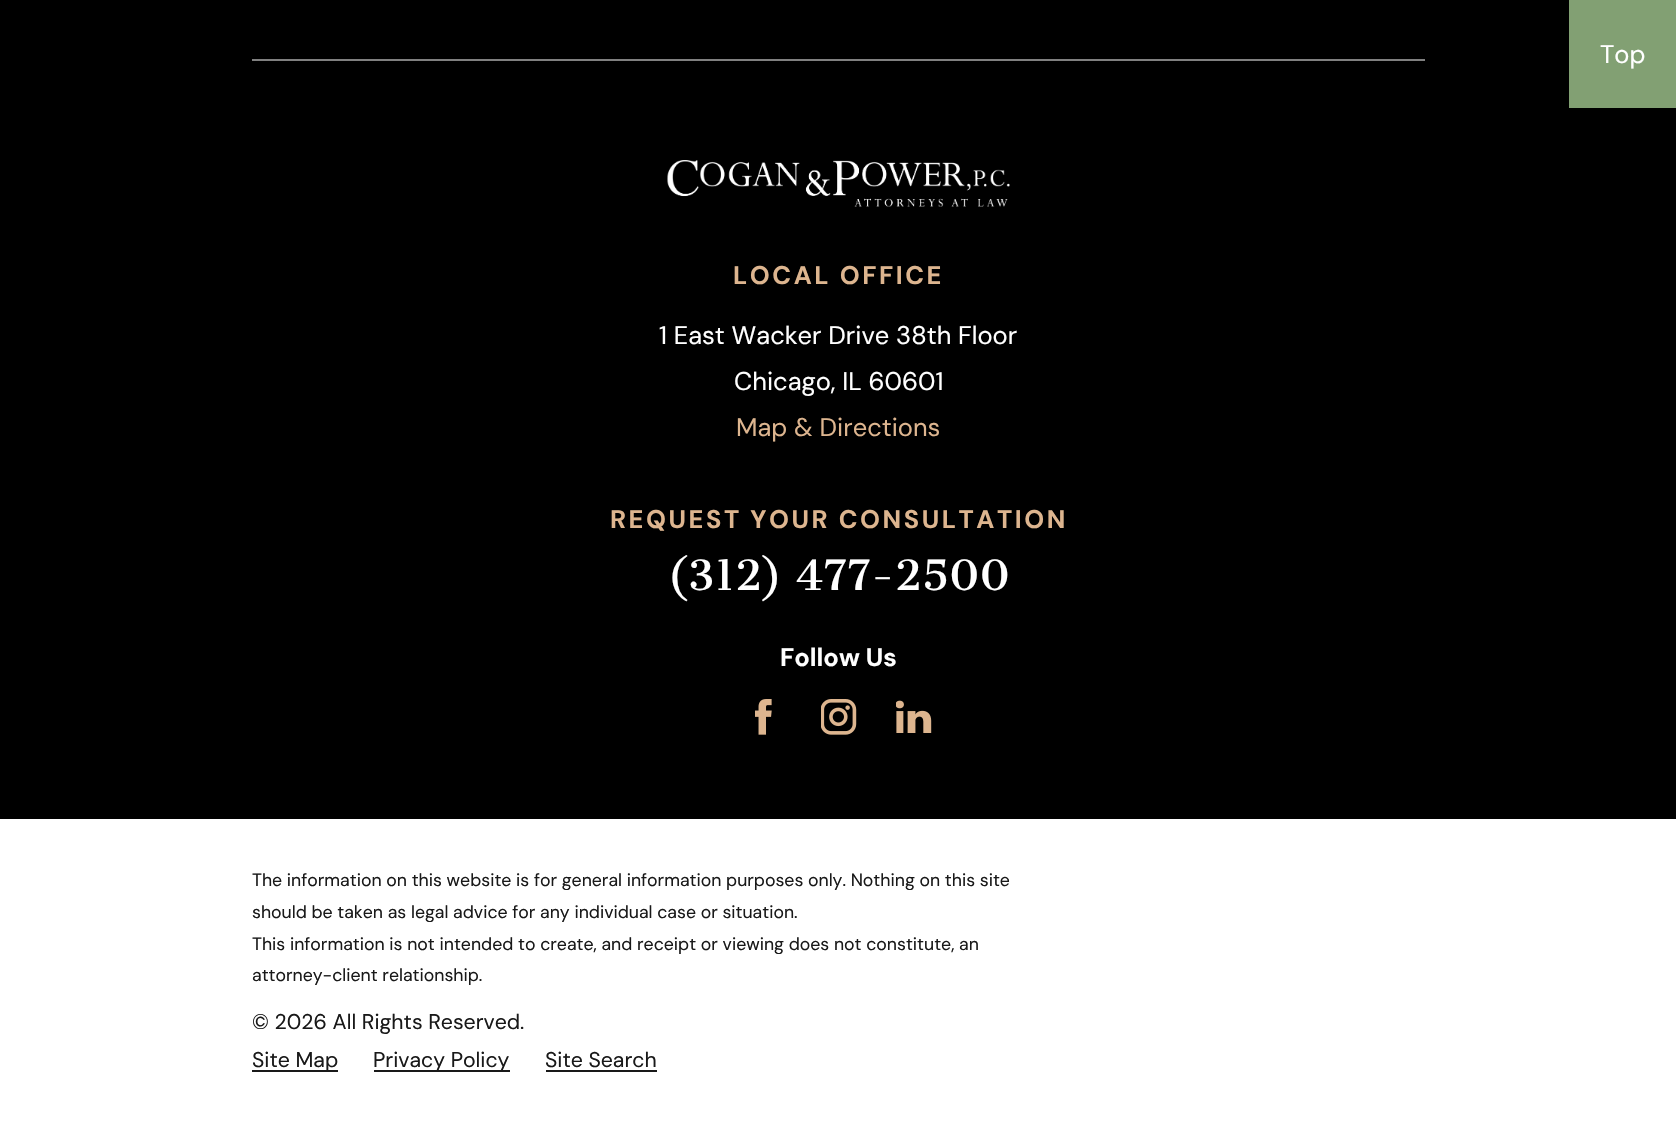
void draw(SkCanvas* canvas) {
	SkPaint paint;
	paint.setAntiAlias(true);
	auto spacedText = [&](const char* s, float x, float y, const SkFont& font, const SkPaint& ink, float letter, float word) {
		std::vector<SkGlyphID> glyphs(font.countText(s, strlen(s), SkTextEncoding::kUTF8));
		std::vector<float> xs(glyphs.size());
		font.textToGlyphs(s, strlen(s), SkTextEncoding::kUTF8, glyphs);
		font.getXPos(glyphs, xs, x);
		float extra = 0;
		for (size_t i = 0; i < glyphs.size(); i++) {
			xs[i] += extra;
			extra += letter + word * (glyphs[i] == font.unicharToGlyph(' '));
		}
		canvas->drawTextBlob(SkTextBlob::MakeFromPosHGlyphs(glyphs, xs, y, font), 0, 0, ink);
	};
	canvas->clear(0xffffffff);
	paint.setColor(0xff000000);
	canvas->drawRect(SkRect::MakeXYWH(0, 0, 1676, 819), paint);
	paint.setColor(0xff82a073);
	canvas->drawRect(SkRect::MakeXYWH(1569, 0, 107, 108), paint);
	SkFont f1(fontMgr->matchFamilyStyle("DM Sans", SkFontStyle::Normal()), 25.5);
	f1.setSubpixel(true);
	paint.setColor(0xffffffff);
	canvas->drawString("Top", 1600, 63, f1, paint);
	paint.setColor(0xff808080);
	canvas->drawRect(SkRect::MakeXYWH(252, 59, 1173, 2), paint);
	canvas->drawImageRect(SkImages::DeferredFromEncodedData(SkData::MakeFromFileName("img1.png")), SkRect::MakeXYWH(667, 160, 343, 47), SkSamplingOptions());
	SkFont f2(fontMgr->matchFamilyStyle("DM Sans", SkFontStyle::Bold()), 25.5);
	f2.setSubpixel(true);
	paint.setColor(0xffddb58f);
	spacedText("LOCAL OFFICE", 733, 284, f2, paint, 2.55, 0);
	paint.setColor(0xffffffff);
	canvas->drawString("1 East Wacker Drive 38th Floor", 659, 344, f1, paint);
	canvas->drawString("Chicago, IL 60601", 734, 390, f1, paint);
	paint.setColor(0xffddb58f);
	canvas->drawString("Map & Directions", 736, 436, f1, paint);
	spacedText("REQUEST YOUR CONSULTATION", 610, 528, f2, paint, 2.55, 0);
	SkFont f3(fontMgr->matchFamilyStyle("Cantata One", SkFontStyle::Normal()), 40.75);
	f3.setSubpixel(true);
	paint.setColor(0xffffffff);
	canvas->drawString("(312) 477-2500", 667, 590, f3, paint);
	canvas->drawString("Follow Us", 780, 666, f2, paint);
	canvas->drawImageRect(SkImages::DeferredFromEncodedData(SkData::MakeFromFileName("img2.png")), SkRect::MakeXYWH(755, 699, 17, 36), SkSamplingOptions());
	canvas->drawImageRect(SkImages::DeferredFromEncodedData(SkData::MakeFromFileName("img3.png")), SkRect::MakeXYWH(821, 699, 36, 36), SkSamplingOptions());
	canvas->drawImageRect(SkImages::DeferredFromEncodedData(SkData::MakeFromFileName("img4.png")), SkRect::MakeXYWH(896, 700, 36, 33), SkSamplingOptions());
	SkFont f4(fontMgr->matchFamilyStyle("DM Sans", SkFontStyle::Normal()), 17.7);
	f4.setSubpixel(true);
	paint.setColor(0xff191919);
	canvas->drawString("The information on this website is for general information purposes only. Nothing on this site", 252, 886, f4, paint);
	canvas->drawString("should be taken as legal advice for any individual case or situation.", 252, 918, f4, paint);
	canvas->drawString("This information is not intended to create, and receipt or viewing does not constitute, an", 252, 950, f4, paint);
	canvas->drawString("attorney-client relationship.", 252, 981, f4, paint);
	SkFont f5(fontMgr->matchFamilyStyle("DM Sans", SkFontStyle::Normal()), 21.25);
	f5.setSubpixel(true);
	canvas->drawString("© 2026 All Rights Reserved.", 252, 1029, f5, paint);
	canvas->drawRect(SkRect::MakeXYWH(252, 1070, 86, 2), paint);
	canvas->drawString("Site Map", 252, 1067, f5, paint);
	canvas->drawRect(SkRect::MakeXYWH(374, 1070, 136, 2), paint);
	canvas->drawString("Privacy Policy", 373, 1067, f5, paint);
	canvas->drawString("Site Search", 545, 1067, f5, paint);
	canvas->drawRect(SkRect::MakeXYWH(546, 1070, 111, 2), paint);
}
